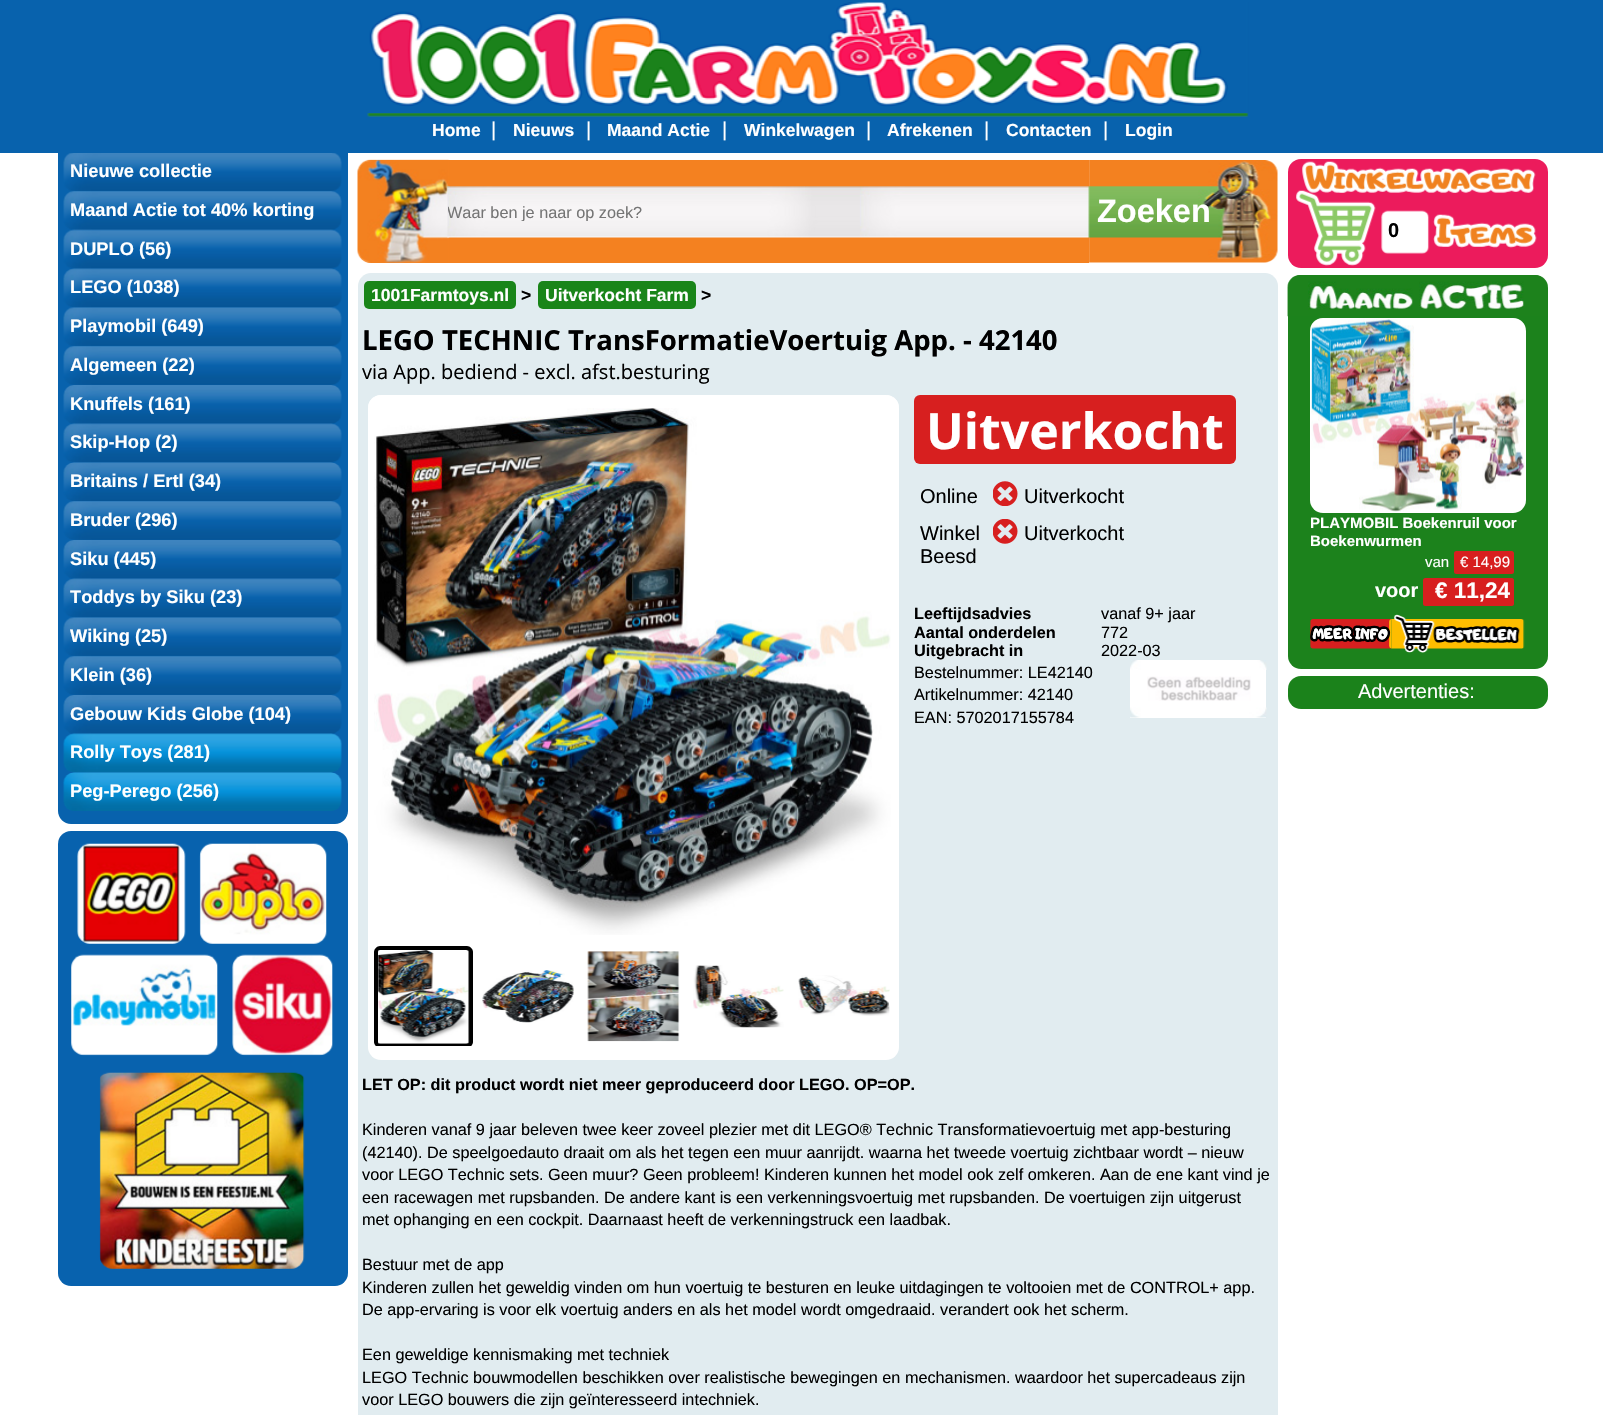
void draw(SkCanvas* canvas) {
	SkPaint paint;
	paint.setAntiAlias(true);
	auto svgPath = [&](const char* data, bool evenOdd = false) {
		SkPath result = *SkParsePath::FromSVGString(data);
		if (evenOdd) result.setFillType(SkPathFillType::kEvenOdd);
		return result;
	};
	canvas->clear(0xffffffff);
	paint.setColor(0xff0862ad);
	canvas->drawRect(SkRect::MakeXYWH(0, 0, 1603, 153), paint);
	canvas->drawImageRect(SkImages::DeferredFromEncodedData(SkData::MakeFromFileName("img1.png")), SkRect::MakeXYWH(367, 2, 882, 115), SkSamplingOptions());
	SkFont f1(fontMgr->matchFamilyStyle("Liberation Sans", SkFontStyle::Bold()), 17.5);
	f1.setSubpixel(true);
	paint.setColor(0xffffffff);
	canvas->drawString("Home", 432, 136, f1, paint);
	SkFont f2(fontMgr->matchFamilyStyle("Liberation Sans", SkFontStyle::Normal()), 20);
	f2.setSubpixel(true);
	canvas->drawString("|", 491, 136, f2, paint);
	canvas->drawString("Nieuws", 513, 136, f1, paint);
	canvas->drawString("|", 586, 136, f2, paint);
	canvas->drawString("Maand Actie", 607, 136, f1, paint);
	canvas->drawString("|", 722, 136, f2, paint);
	canvas->drawString("Winkelwagen", 744, 136, f1, paint);
	canvas->drawString("|", 866, 136, f2, paint);
	canvas->drawString("Afrekenen", 887, 136, f1, paint);
	canvas->drawString("|", 984, 136, f2, paint);
	canvas->drawString("Contacten", 1006, 136, f1, paint);
	canvas->drawString("|", 1103, 136, f2, paint);
	canvas->drawString("Login", 1125, 136, f1, paint);
	paint.setColor(0xff0862ad);
	canvas->drawPath(svgPath("M58 153H348V811C348 818 342 824 335 824H71C64 824 58 818 58 811Z"), paint);
	canvas->drawImageRect(SkImages::DeferredFromEncodedData(SkData::MakeFromFileName("img2.png")), SkRect::MakeXYWH(63, 153, 279, 39), SkSamplingOptions());
	SkFont f3(fontMgr->matchFamilyStyle("Liberation Sans", SkFontStyle::Bold()), 18.25);
	f3.setSubpixel(true);
	paint.setColor(0xffffffff);
	canvas->drawString("Nieuwe collectie", 70, 177, f3, paint);
	paint.setColor(0xff0862ad);
	canvas->drawRoundRect(SkRect::MakeXYWH(64, 191, 277, 39), 10, 10, paint);
	canvas->drawImageRect(SkImages::DeferredFromEncodedData(SkData::MakeFromFileName("img3.png")), SkRect::MakeXYWH(63, 191, 279, 39), SkSamplingOptions());
	paint.setColor(0xffffffff);
	canvas->drawString("Maand Actie tot 40% korting", 70, 216, f3, paint);
	canvas->drawImageRect(SkImages::DeferredFromEncodedData(SkData::MakeFromFileName("img4.png")), SkRect::MakeXYWH(63, 229, 279, 41), SkSamplingOptions());
	canvas->drawString("DUPLO (56)", 70, 255, f3, paint);
	paint.setColor(0xff0862ad);
	canvas->drawRoundRect(SkRect::MakeXYWH(64, 269, 277, 39), 10, 10, paint);
	canvas->drawImageRect(SkImages::DeferredFromEncodedData(SkData::MakeFromFileName("img5.png")), SkRect::MakeXYWH(63, 268, 279, 40), SkSamplingOptions());
	paint.setColor(0xffffffff);
	canvas->drawString("LEGO (1038)", 70, 293, f3, paint);
	canvas->drawImageRect(SkImages::DeferredFromEncodedData(SkData::MakeFromFileName("img6.png")), SkRect::MakeXYWH(63, 307, 279, 40), SkSamplingOptions());
	canvas->drawString("Playmobil (649)", 70, 332, f3, paint);
	paint.setColor(0xff0862ad);
	canvas->drawRoundRect(SkRect::MakeXYWH(64, 346, 277, 39), 10, 10, paint);
	canvas->drawImageRect(SkImages::DeferredFromEncodedData(SkData::MakeFromFileName("img3.png")), SkRect::MakeXYWH(63, 346, 279, 39), SkSamplingOptions());
	paint.setColor(0xffffffff);
	canvas->drawString("Algemeen (22)", 70, 371, f3, paint);
	canvas->drawImageRect(SkImages::DeferredFromEncodedData(SkData::MakeFromFileName("img7.png")), SkRect::MakeXYWH(63, 385, 279, 39), SkSamplingOptions());
	canvas->drawString("Knuffels (161)", 70, 410, f3, paint);
	canvas->drawImageRect(SkImages::DeferredFromEncodedData(SkData::MakeFromFileName("img8.png")), SkRect::MakeXYWH(63, 423, 279, 40), SkSamplingOptions());
	canvas->drawString("Skip-Hop (2)", 70, 448, f3, paint);
	canvas->drawImageRect(SkImages::DeferredFromEncodedData(SkData::MakeFromFileName("img9.png")), SkRect::MakeXYWH(63, 462, 279, 40), SkSamplingOptions());
	canvas->drawString("Britains / Ertl (34)", 70, 487, f3, paint);
	paint.setColor(0xff0862ad);
	canvas->drawRoundRect(SkRect::MakeXYWH(64, 501, 277, 39), 10, 10, paint);
	canvas->drawImageRect(SkImages::DeferredFromEncodedData(SkData::MakeFromFileName("img10.png")), SkRect::MakeXYWH(63, 501, 279, 39), SkSamplingOptions());
	paint.setColor(0xffffffff);
	canvas->drawString("Bruder (296)", 70, 526, f3, paint);
	canvas->drawImageRect(SkImages::DeferredFromEncodedData(SkData::MakeFromFileName("img7.png")), SkRect::MakeXYWH(63, 540, 279, 39), SkSamplingOptions());
	canvas->drawString("Siku (445)", 70, 565, f3, paint);
	canvas->drawImageRect(SkImages::DeferredFromEncodedData(SkData::MakeFromFileName("img8.png")), SkRect::MakeXYWH(63, 578, 279, 40), SkSamplingOptions());
	canvas->drawString("Toddys by Siku (23)", 70, 603, f3, paint);
	canvas->drawImageRect(SkImages::DeferredFromEncodedData(SkData::MakeFromFileName("img6.png")), SkRect::MakeXYWH(63, 617, 279, 40), SkSamplingOptions());
	canvas->drawString("Wiking (25)", 70, 642, f3, paint);
	paint.setColor(0xff0862ad);
	canvas->drawRoundRect(SkRect::MakeXYWH(64, 656, 277, 39), 10, 10, paint);
	canvas->drawImageRect(SkImages::DeferredFromEncodedData(SkData::MakeFromFileName("img3.png")), SkRect::MakeXYWH(63, 656, 279, 39), SkSamplingOptions());
	paint.setColor(0xffffffff);
	canvas->drawString("Klein (36)", 70, 681, f3, paint);
	canvas->drawImageRect(SkImages::DeferredFromEncodedData(SkData::MakeFromFileName("img7.png")), SkRect::MakeXYWH(63, 695, 279, 39), SkSamplingOptions());
	canvas->drawString("Gebouw Kids Globe (104)", 70, 720, f3, paint);
	canvas->drawImageRect(SkImages::DeferredFromEncodedData(SkData::MakeFromFileName("img11.png")), SkRect::MakeXYWH(63, 733, 279, 40), SkSamplingOptions());
	canvas->drawString("Rolly Toys (281)", 70, 758, f3, paint);
	canvas->drawImageRect(SkImages::DeferredFromEncodedData(SkData::MakeFromFileName("img12.png")), SkRect::MakeXYWH(63, 772, 279, 39), SkSamplingOptions());
	canvas->drawString("Peg-Perego (256)", 70, 797, f3, paint);
	paint.setColor(0xff0862ae);
	canvas->drawRoundRect(SkRect::MakeXYWH(58, 831, 290, 455), 13, 13, paint);
	canvas->drawImageRect(SkImages::DeferredFromEncodedData(SkData::MakeFromFileName("img13.png")), SkRect::MakeXYWH(77, 843, 109, 101), SkSamplingOptions());
	canvas->drawImageRect(SkImages::DeferredFromEncodedData(SkData::MakeFromFileName("img14.png")), SkRect::MakeXYWH(199, 843, 128, 101), SkSamplingOptions());
	canvas->drawImageRect(SkImages::DeferredFromEncodedData(SkData::MakeFromFileName("img15.png")), SkRect::MakeXYWH(71, 954, 147, 102), SkSamplingOptions());
	canvas->drawImageRect(SkImages::DeferredFromEncodedData(SkData::MakeFromFileName("img16.png")), SkRect::MakeXYWH(232, 954, 101, 102), SkSamplingOptions());
	canvas->drawImageRect(SkImages::DeferredFromEncodedData(SkData::MakeFromFileName("img17.png")), SkRect::MakeXYWH(99, 1072, 206, 197), SkSamplingOptions());
	paint.setColor(0xfff48120);
	canvas->drawPath(svgPath("M371 160H1089V263H371C364 263 358 257 358 250V173C358 166 364 160 371 160Z"), paint);
	canvas->drawImageRect(SkImages::DeferredFromEncodedData(SkData::MakeFromFileName("img18.png")), SkRect::MakeXYWH(357, 159, 93, 104), SkSamplingOptions());
	canvas->drawImageRect(SkImages::DeferredFromEncodedData(SkData::MakeFromFileName("img19.png")), SkRect::MakeXYWH(447, 186, 643, 52), SkSamplingOptions());
	canvas->save();
	canvas->clipRect(SkRect::MakeXYWH(448, 203, 715, 18));
	SkFont f4(fontMgr->matchFamilyStyle("Liberation Sans", SkFontStyle::Normal()), 16.25);
	f4.setSubpixel(true);
	paint.setColor(0xff757575);
	canvas->drawString("Waar ben je naar op zoek?", 447, 218, f4, paint);
	canvas->restore();
	canvas->drawImageRect(SkImages::DeferredFromEncodedData(SkData::MakeFromFileName("img20.png")), SkRect::MakeXYWH(1088, 160, 190, 103), SkSamplingOptions());
	SkFont f5(fontMgr->matchFamilyStyle("Liberation Sans", SkFontStyle::Bold()), 32.5);
	f5.setSubpixel(true);
	paint.setColor(0xffffffff);
	canvas->drawString("Zoeken", 1097, 222, f5, paint);
	paint.setColor(0xffe1ecf0);
	canvas->drawPath(svgPath("M371 273H1265C1272 273 1278 279 1278 286V318H358V286C358 279 364 273 371 273Z"), paint);
	paint.setColor(0xff198519);
	canvas->drawRoundRect(SkRect::MakeXYWH(364, 281, 152, 28), 5, 5, paint);
	paint.setColor(0xffffffff);
	canvas->drawString("1001Farmtoys.nl", 371, 301, f1, paint);
	paint.setColor(0xff000000);
	canvas->drawString(">", 521, 301, f1, paint);
	paint.setColor(0xff198519);
	canvas->drawRoundRect(SkRect::MakeXYWH(538, 281, 158, 28), 5, 5, paint);
	paint.setColor(0xffffffff);
	canvas->drawString("Uitverkocht Farm", 545, 301, f1, paint);
	paint.setColor(0xff000000);
	canvas->drawString(">", 701, 301, f1, paint);
	paint.setColor(0xffe1ecf0);
	canvas->drawRect(SkRect::MakeXYWH(358, 318, 920, 1097), paint);
	SkFont f6(fontMgr->matchFamilyStyle("Open Sans", SkFontStyle::Bold()), 27.5);
	f6.setSubpixel(true);
	paint.setColor(0xff000000);
	canvas->drawString("LEGO TECHNIC TransFormatieVoertuig App. - 42140", 362, 350, f6, paint);
	SkFont f7(fontMgr->matchFamilyStyle("Open Sans", SkFontStyle::Normal()), 20);
	f7.setSubpixel(true);
	canvas->drawString("via App. bediend - excl. afst.besturing", 362, 379, f7, paint);
	paint.setColor(0xffffffff);
	canvas->drawRoundRect(SkRect::MakeXYWH(368, 395, 531, 665), 13, 13, paint);
	canvas->drawRoundRect(SkRect::MakeXYWH(368, 395, 531, 663), 13, 13, paint);
	canvas->drawImageRect(SkImages::DeferredFromEncodedData(SkData::MakeFromFileName("img21.png")), SkRect::MakeXYWH(374, 408, 517, 527), SkSamplingOptions());
	canvas->save();
	canvas->clipRect(SkRect::MakeXYWH(374, 946, 1157, 100));
	paint.setColor(0xff000000);
	canvas->drawPath(svgPath("M380 946H467C470 946 473 949 473 952V1042C473 1045 470 1048 467 1048H380C377 1048 374 1045 374 1042V952C374 949 377 946 380 946Z"), paint);
	canvas->restore();
	canvas->drawImageRect(SkImages::DeferredFromEncodedData(SkData::MakeFromFileName("img22.png")), SkRect::MakeXYWH(378, 950, 92, 94), SkSamplingOptions());
	canvas->drawImageRect(SkImages::DeferredFromEncodedData(SkData::MakeFromFileName("img23.png")), SkRect::MakeXYWH(482, 970, 92, 53), SkSamplingOptions());
	canvas->drawImageRect(SkImages::DeferredFromEncodedData(SkData::MakeFromFileName("img24.png")), SkRect::MakeXYWH(587, 951, 93, 91), SkSamplingOptions());
	canvas->drawImageRect(SkImages::DeferredFromEncodedData(SkData::MakeFromFileName("img25.png")), SkRect::MakeXYWH(693, 965, 91, 63), SkSamplingOptions());
	canvas->drawImageRect(SkImages::DeferredFromEncodedData(SkData::MakeFromFileName("img26.png")), SkRect::MakeXYWH(798, 975, 92, 41), SkSamplingOptions());
	paint.setColor(0xffd71f1f);
	canvas->drawRoundRect(SkRect::MakeXYWH(914, 395, 322, 69), 6, 6, paint);
	SkFont f8(fontMgr->matchFamilyStyle("Open Sans", SkFontStyle::Bold()), 50);
	f8.setSubpixel(true);
	paint.setColor(0xffffffff);
	canvas->drawString("Uitverkocht", 926, 449, f8, paint);
	paint.setColor(0xff000000);
	canvas->drawString("Online", 920, 503, f2, paint);
	canvas->drawImageRect(SkImages::DeferredFromEncodedData(SkData::MakeFromFileName("img27.png")), SkRect::MakeXYWH(993, 481, 25, 25), SkSamplingOptions());
	canvas->drawString("Uitverkocht", 1024, 503, f2, paint);
	canvas->drawString("Winkel", 920, 540, f2, paint);
	canvas->drawString("Beesd", 920, 563, f2, paint);
	canvas->drawImageRect(SkImages::DeferredFromEncodedData(SkData::MakeFromFileName("img28.png")), SkRect::MakeXYWH(993, 519, 25, 25), SkSamplingOptions());
	canvas->drawString("Uitverkocht", 1024, 540, f2, paint);
	SkFont f9(fontMgr->matchFamilyStyle("Liberation Sans", SkFontStyle::Bold()), 16.25);
	f9.setSubpixel(true);
	canvas->drawString("Leeftijdsadvies", 914, 619, f9, paint);
	canvas->drawString("vanaf 9+ jaar", 1101, 619, f4, paint);
	canvas->drawString("Aantal onderdelen", 914, 638, f9, paint);
	canvas->drawString("772", 1101, 638, f4, paint);
	canvas->drawString("Uitgebracht in", 914, 656, f9, paint);
	canvas->drawString("2022-03", 1101, 656, f4, paint);
	canvas->drawString("Bestelnummer: LE42140", 914, 678, f4, paint);
	canvas->drawString("Artikelnummer: 42140", 914, 700, f4, paint);
	canvas->drawString("EAN: 5702017155784", 914, 723, f4, paint);
	paint.setColor(0xffffffff);
	canvas->drawRect(SkRect::MakeXYWH(1130, 669, 136, 49), paint);
	canvas->drawImageRect(SkImages::DeferredFromEncodedData(SkData::MakeFromFileName("img29.png")), SkRect::MakeXYWH(1130, 660, 137, 10), SkSamplingOptions());
	canvas->drawImageRect(SkImages::DeferredFromEncodedData(SkData::MakeFromFileName("img30.png")), SkRect::MakeXYWH(1147, 676, 104, 25), SkSamplingOptions());
	canvas->drawImageRect(SkImages::DeferredFromEncodedData(SkData::MakeFromFileName("img31.png")), SkRect::MakeXYWH(1130, 707, 137, 11), SkSamplingOptions());
	paint.setColor(0xff000000);
	canvas->drawString("LET OP: dit product wordt niet meer geproduceerd door LEGO. OP=OP.", 362, 1090, f9, paint);
	canvas->drawString("Kinderen vanaf 9 jaar beleven twee keer zoveel plezier met dit LEGO® Technic Transformatievoertuig met app-besturing", 362, 1135, f4, paint);
	canvas->drawString("(42140). De speelgoedauto draait om als het tegen een muur aanrijdt. waarna het tweede voertuig zichtbaar wordt – nieuw", 362, 1158, f4, paint);
	canvas->drawString("voor LEGO Technic sets. Geen muur? Geen probleem! Kinderen kunnen het model ook zelf omkeren. Aan de ene kant vind je", 362, 1180, f4, paint);
	canvas->drawString("een racewagen met rupsbanden. De andere kant is een verkenningsvoertuig met rupsbanden. De voertuigen zijn uitgerust", 362, 1203, f4, paint);
	canvas->drawString("met ophanging en een cockpit. Daarnaast heeft de verkenningstruck een laadbak.", 362, 1225, f4, paint);
	canvas->drawString("Bestuur met de app", 362, 1270, f4, paint);
	canvas->drawString("Kinderen zullen het geweldig vinden om hun voertuig te besturen en leuke uitdagingen te voltooien met de CONTROL+ app.", 362, 1293, f4, paint);
	canvas->drawString("De app-ervaring is voor elk voertuig anders en als het model wordt omgedraaid. verandert ook het scherm.", 362, 1315, f4, paint);
	canvas->drawString("Een geweldige kennismaking met techniek", 362, 1360, f4, paint);
	canvas->drawString("LEGO Technic bouwmodellen beschikken over realistische bewegingen en mechanismen. waardoor het supercadeaus zijn", 362, 1383, f4, paint);
	canvas->drawString("voor LEGO bouwers die zijn geïnteresseerd intechniek.", 362, 1405, f4, paint);
	paint.setColor(0xffec1b5c);
	canvas->drawRoundRect(SkRect::MakeXYWH(1288, 159, 260, 109), 13, 13, paint);
	canvas->drawImageRect(SkImages::DeferredFromEncodedData(SkData::MakeFromFileName("img32.png")), SkRect::MakeXYWH(1296, 161, 241, 105), SkSamplingOptions());
	SkFont f10(fontMgr->matchFamilyStyle("Liberation Sans", SkFontStyle::Bold()), 20);
	f10.setSubpixel(true);
	paint.setColor(0xff000000);
	canvas->drawString("0", 1388, 237, f10, paint);
	paint.setColor(0xff1c821c);
	canvas->drawRoundRect(SkRect::MakeXYWH(1288, 275, 260, 394), 13, 13, paint);
	canvas->drawImageRect(SkImages::DeferredFromEncodedData(SkData::MakeFromFileName("img33.png")), SkRect::MakeXYWH(1287, 275, 261, 42), SkSamplingOptions());
	paint.setColor(0xffffffff);
	canvas->drawRoundRect(SkRect::MakeXYWH(1310, 318, 216, 195), 13, 13, paint);
	canvas->drawImageRect(SkImages::DeferredFromEncodedData(SkData::MakeFromFileName("img34.png")), SkRect::MakeXYWH(1311, 318, 214, 194), SkSamplingOptions());
	SkFont f11(fontMgr->matchFamilyStyle("Liberation Sans", SkFontStyle::Bold()), 15);
	f11.setSubpixel(true);
	canvas->drawString("PLAYMOBIL Boekenruil voor", 1310, 528, f11, paint);
	canvas->drawString("Boekenwurmen", 1310, 546, f11, paint);
	SkFont f12(fontMgr->matchFamilyStyle("Liberation Sans", SkFontStyle::Normal()), 15);
	f12.setSubpixel(true);
	canvas->drawString("van", 1425, 567, f12, paint);
	paint.setColor(0xffd71f1f);
	canvas->drawRoundRect(SkRect::MakeXYWH(1454, 551, 60, 23), 2.5, 2.5, paint);
	paint.setColor(0xffffffff);
	canvas->drawString("€ 14,99", 1460, 567, f12, paint);
	canvas->drawString("voor", 1375, 597, f10, paint);
	paint.setColor(0xffd71f1f);
	canvas->drawRoundRect(SkRect::MakeXYWH(1423, 578, 91, 28), 2.5, 2.5, paint);
	SkFont f13(fontMgr->matchFamilyStyle("Liberation Sans", SkFontStyle::Bold()), 22.5);
	f13.setSubpixel(true);
	paint.setColor(0xffffffff);
	canvas->drawString("€ 11,24", 1435, 598, f13, paint);
	canvas->drawImageRect(SkImages::DeferredFromEncodedData(SkData::MakeFromFileName("img35.png")), SkRect::MakeXYWH(1310, 619, 81, 30), SkSamplingOptions());
	canvas->drawImageRect(SkImages::DeferredFromEncodedData(SkData::MakeFromFileName("img36.png")), SkRect::MakeXYWH(1391, 614, 134, 39), SkSamplingOptions());
	paint.setColor(0xff1b821b);
	canvas->drawRoundRect(SkRect::MakeXYWH(1288, 676, 260, 33), 13, 13, paint);
	paint.setColor(0xffffffff);
	canvas->drawString("Advertenties:", 1358, 698, f2, paint);
}
